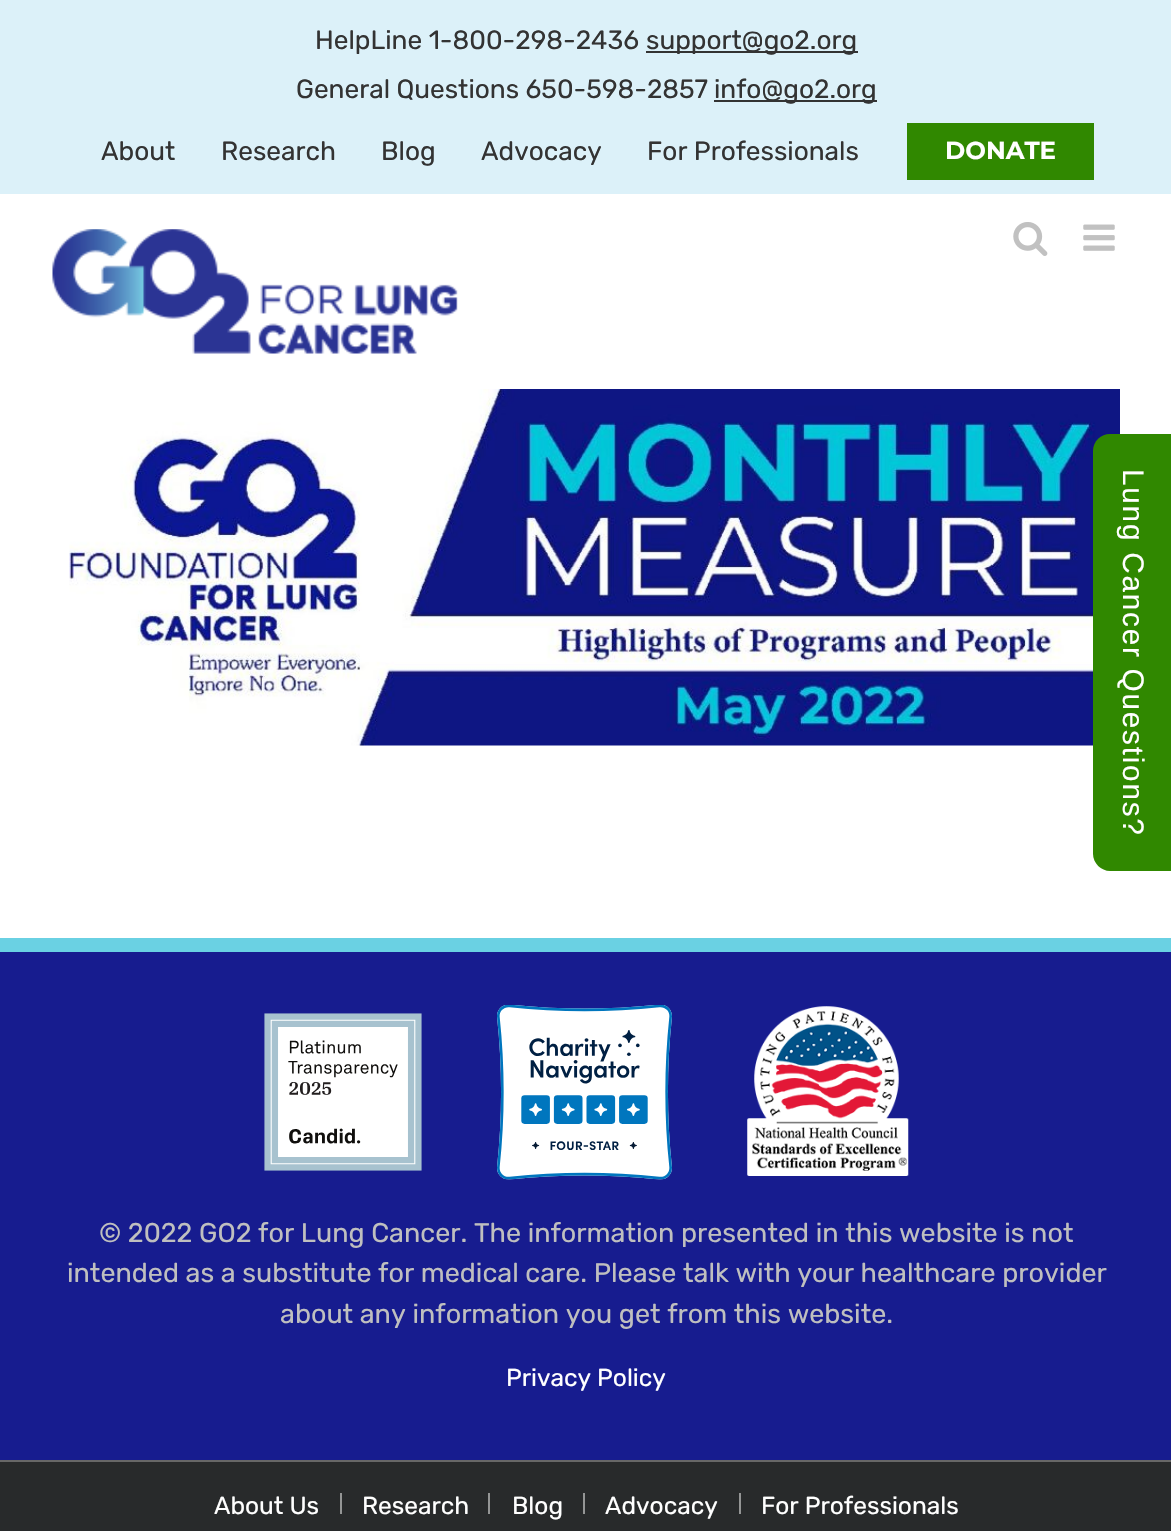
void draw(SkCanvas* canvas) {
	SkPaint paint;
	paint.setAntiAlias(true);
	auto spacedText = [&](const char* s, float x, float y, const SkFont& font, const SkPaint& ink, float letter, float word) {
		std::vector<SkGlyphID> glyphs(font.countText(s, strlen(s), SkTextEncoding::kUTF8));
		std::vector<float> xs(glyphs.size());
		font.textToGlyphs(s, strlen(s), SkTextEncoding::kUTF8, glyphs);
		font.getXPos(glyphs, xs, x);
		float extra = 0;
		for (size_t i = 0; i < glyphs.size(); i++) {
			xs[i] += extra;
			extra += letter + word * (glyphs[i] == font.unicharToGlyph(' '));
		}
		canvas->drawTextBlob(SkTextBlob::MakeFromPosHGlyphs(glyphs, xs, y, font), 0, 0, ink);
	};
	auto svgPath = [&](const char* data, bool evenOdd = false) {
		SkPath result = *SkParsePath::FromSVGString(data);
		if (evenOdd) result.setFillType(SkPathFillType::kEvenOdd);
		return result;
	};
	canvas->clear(0xffffffff);
	paint.setColor(0xffdcf1f9);
	canvas->drawRect(SkRect::MakeXYWH(0, 0, 1171, 194), paint);
	SkFont f1(fontMgr->matchFamilyStyle("Rubik", SkFontStyle::Normal()), 26.25);
	f1.setSubpixel(true);
	paint.setColor(0xff333333);
	canvas->drawString("HelpLine 1-800-298-2436", 315, 49, f1, paint);
	canvas->drawRect(SkRect::MakeXYWH(646, 51, 212, 2), paint);
	canvas->drawString("support@go2.org", 646, 49, f1, paint);
	canvas->drawString("General Questions 650-598-2857", 296, 98, f1, paint);
	canvas->drawRect(SkRect::MakeXYWH(714, 100, 163, 2), paint);
	canvas->drawString("info@go2.org", 714, 98, f1, paint);
	canvas->drawString("About", 101, 160, f1, paint);
	canvas->drawString("Research", 221, 160, f1, paint);
	canvas->drawString("Blog", 381, 160, f1, paint);
	canvas->drawString("Advocacy", 481, 160, f1, paint);
	canvas->drawString("For Professionals", 647, 160, f1, paint);
	paint.setColor(0xff308800);
	canvas->drawRect(SkRect::MakeXYWH(907, 123, 187, 57), paint);
	SkFont f2(fontMgr->matchFamilyStyle("Montserrat", SkFontStyle::Bold()), 24.5);
	f2.setSubpixel(true);
	paint.setColor(0xffffffff);
	canvas->drawString("DONATE", 945, 159, f2, paint);
	canvas->drawImageRect(SkImages::DeferredFromEncodedData(SkData::MakeFromFileName("img1.png")), SkRect::MakeXYWH(52, 229, 406, 125), SkSamplingOptions());
	canvas->drawImageRect(SkImages::DeferredFromEncodedData(SkData::MakeFromFileName("img2.png")), SkRect::MakeXYWH(1013, 222, 35, 34), SkSamplingOptions());
	canvas->drawImageRect(SkImages::DeferredFromEncodedData(SkData::MakeFromFileName("img3.png")), SkRect::MakeXYWH(1083, 224, 32, 27), SkSamplingOptions());
	canvas->drawImageRect(SkImages::DeferredFromEncodedData(SkData::MakeFromFileName("img4.png")), SkRect::MakeXYWH(69, 389, 1051, 357), SkSamplingOptions());
	paint.setColor(0xff171c8f);
	canvas->drawRect(SkRect::MakeXYWH(0, 952, 1171, 508), paint);
	paint.setColor(0xff6ad1e3);
	canvas->drawRect(SkRect::MakeXYWH(0, 938, 1171, 14), paint);
	canvas->drawImageRect(SkImages::DeferredFromEncodedData(SkData::MakeFromFileName("img5.png")), SkRect::MakeXYWH(264, 1013, 158, 158), SkSamplingOptions());
	canvas->drawImageRect(SkImages::DeferredFromEncodedData(SkData::MakeFromFileName("img6.png")), SkRect::MakeXYWH(497, 1005, 175, 175), SkSamplingOptions());
	canvas->drawImageRect(SkImages::DeferredFromEncodedData(SkData::MakeFromFileName("img7.png")), SkRect::MakeXYWH(747, 1006, 162, 170), SkSamplingOptions());
	SkFont f3(fontMgr->matchFamilyStyle("Rubik", SkFontStyle::Normal()), 26.95);
	f3.setSubpixel(true);
	paint.setColor(0xffbfbfbf);
	canvas->drawString("© 2022 GO2 for Lung Cancer. The information presented in this website is not", 99, 1242, f3, paint);
	canvas->drawString("intended as a substitute for medical care. Please talk with your healthcare provider", 67, 1282, f3, paint);
	canvas->drawString("about any information you get from this website.", 280, 1323, f3, paint);
	SkFont f4(fontMgr->matchFamilyStyle("Rubik", SkFontStyle::Normal()), 24.5);
	f4.setSubpixel(true);
	paint.setColor(0xffffffff);
	canvas->drawString("Privacy Policy", 506, 1386, f4, paint);
	paint.setColor(0xff282a2b);
	canvas->drawRect(SkRect::MakeXYWH(0, 1462, 1171, 69), paint);
	paint.setColor(0xff676767);
	canvas->drawRect(SkRect::MakeXYWH(0, 1460, 1171, 2), paint);
	paint.setColor(0xffffffff);
	canvas->drawString("About Us", 214, 1514, f4, paint);
	paint.setColor(0xff949595);
	canvas->drawRect(SkRect::MakeXYWH(340, 1493, 2, 21), paint);
	paint.setColor(0xffffffff);
	canvas->drawString("Research", 362, 1514, f4, paint);
	paint.setColor(0xff949595);
	canvas->drawRect(SkRect::MakeXYWH(488, 1493, 2, 21), paint);
	paint.setColor(0xffffffff);
	canvas->drawString("Blog", 512, 1514, f4, paint);
	paint.setColor(0xff949595);
	canvas->drawRect(SkRect::MakeXYWH(583, 1493, 2, 21), paint);
	paint.setColor(0xffffffff);
	canvas->drawString("Advocacy", 605, 1514, f4, paint);
	paint.setColor(0xff949595);
	canvas->drawRect(SkRect::MakeXYWH(739, 1493, 2, 21), paint);
	paint.setColor(0xffffffff);
	canvas->drawString("For Professionals", 761, 1514, f4, paint);
	paint.setColor(0xff308800);
	canvas->drawPath(svgPath("M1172 434V871H1110C1101 871 1093 863 1093 854V451C1093 441 1101 434 1110 434Z"), paint);
	SkFont f5(fontMgr->matchFamilyStyle("Liberation Sans", SkFontStyle::Normal()), 29.75);
	f5.setSubpixel(true);
	paint.setColor(0xffffffff);
	canvas->save();
	canvas->rotate(90, 1123, 469);
	spacedText("Lung Cancer Questions?", 1123, 469, f5, paint, 1.75, 0);
	canvas->restore();
}
